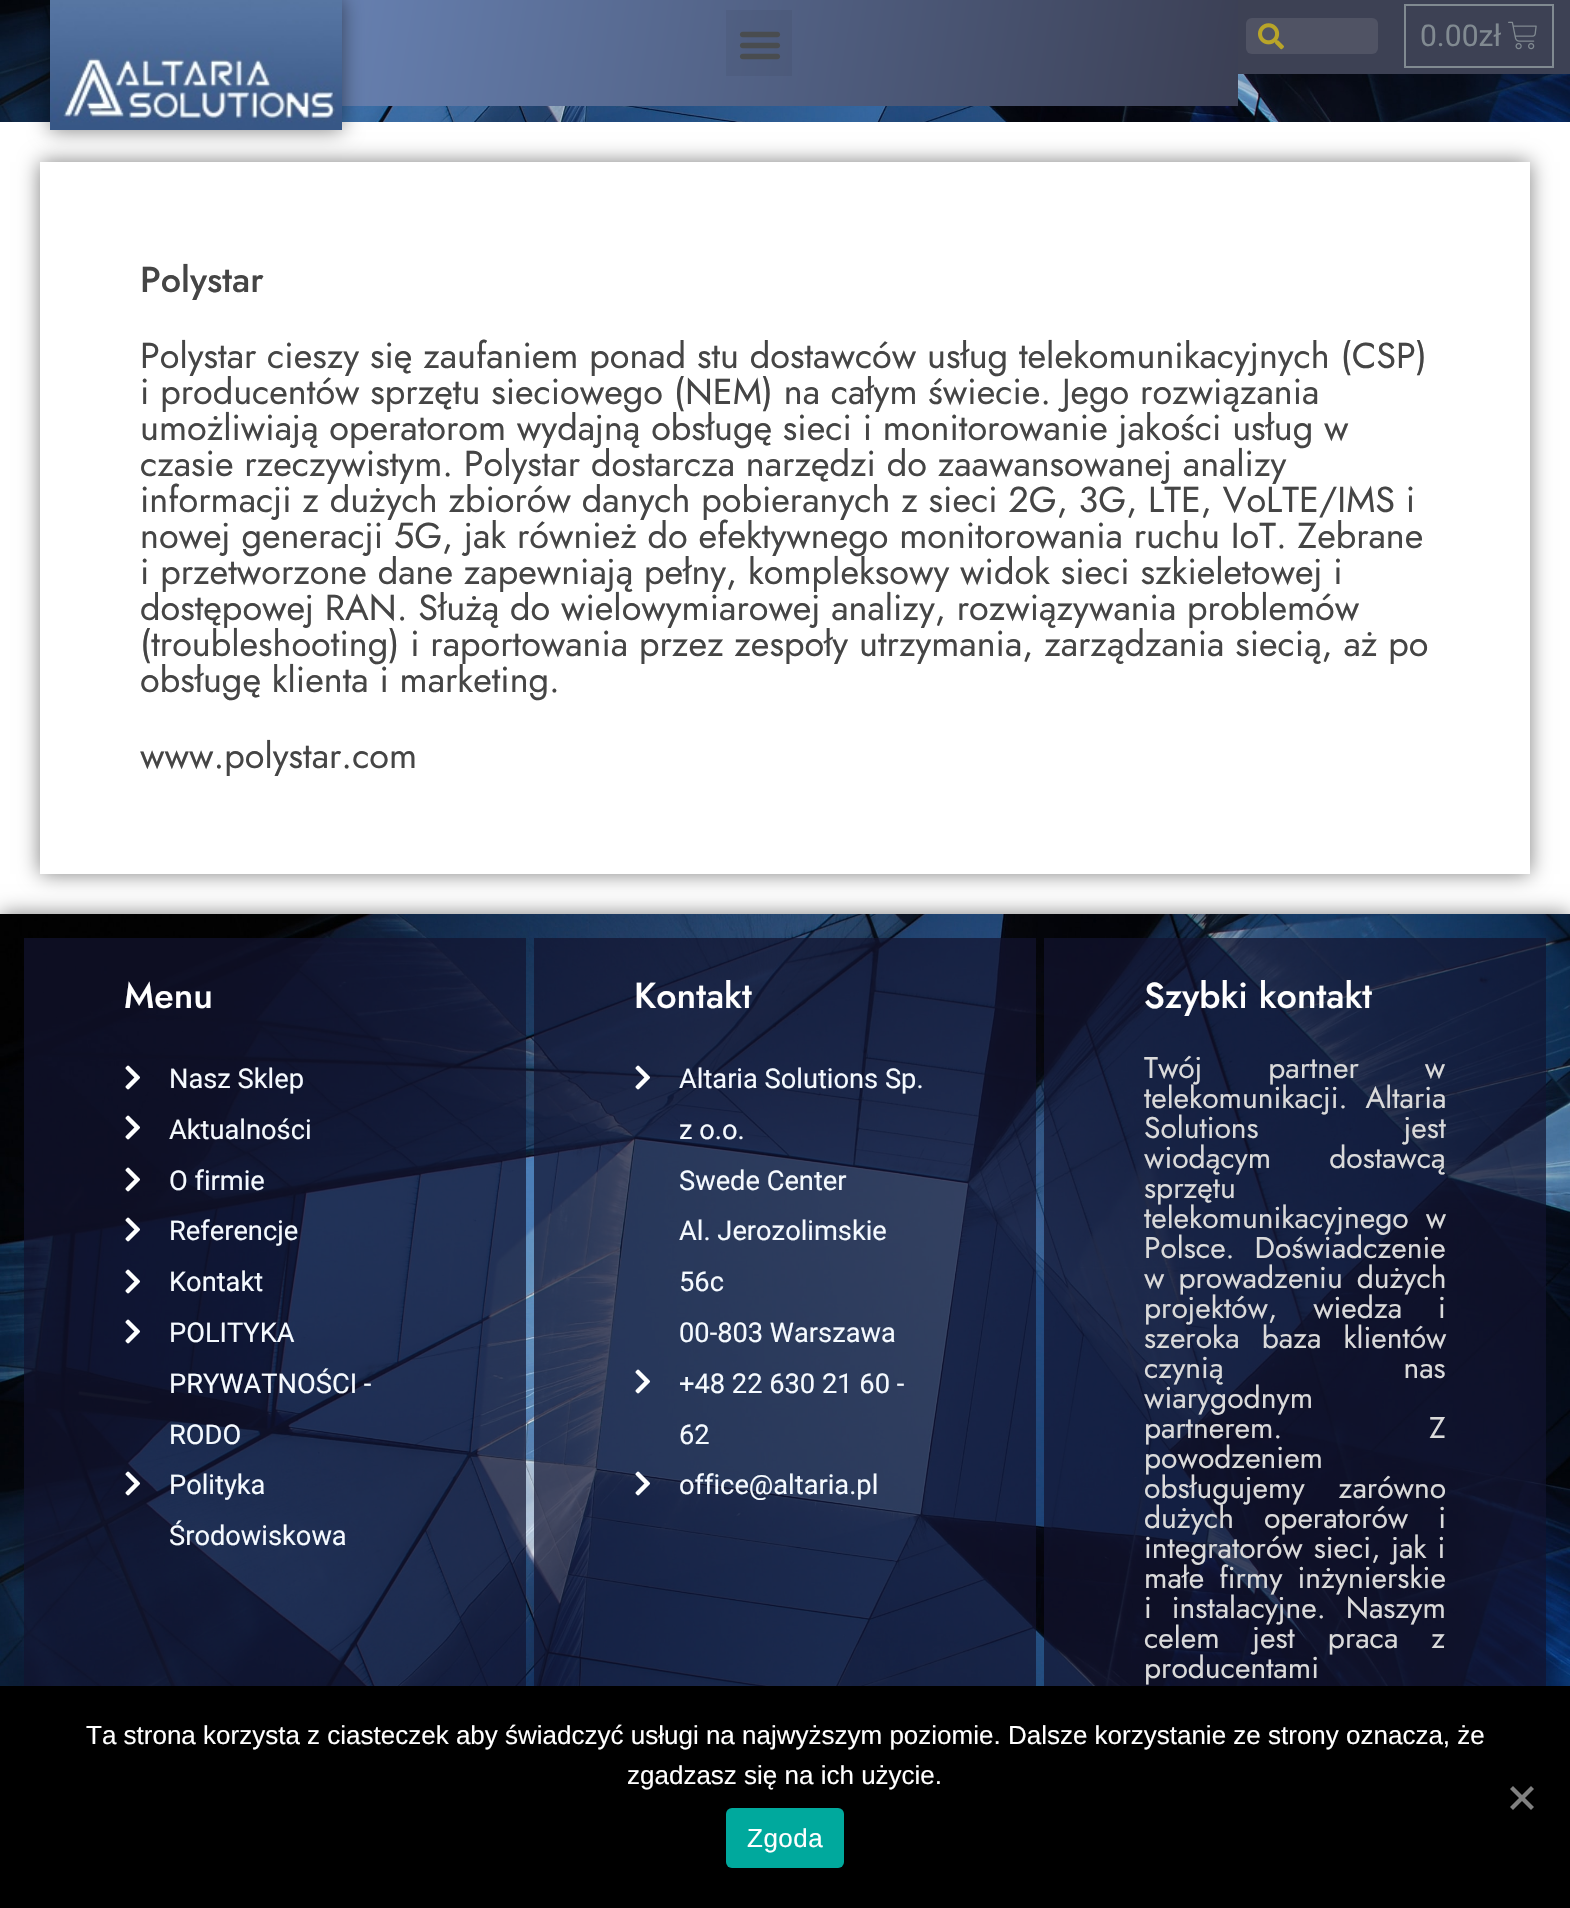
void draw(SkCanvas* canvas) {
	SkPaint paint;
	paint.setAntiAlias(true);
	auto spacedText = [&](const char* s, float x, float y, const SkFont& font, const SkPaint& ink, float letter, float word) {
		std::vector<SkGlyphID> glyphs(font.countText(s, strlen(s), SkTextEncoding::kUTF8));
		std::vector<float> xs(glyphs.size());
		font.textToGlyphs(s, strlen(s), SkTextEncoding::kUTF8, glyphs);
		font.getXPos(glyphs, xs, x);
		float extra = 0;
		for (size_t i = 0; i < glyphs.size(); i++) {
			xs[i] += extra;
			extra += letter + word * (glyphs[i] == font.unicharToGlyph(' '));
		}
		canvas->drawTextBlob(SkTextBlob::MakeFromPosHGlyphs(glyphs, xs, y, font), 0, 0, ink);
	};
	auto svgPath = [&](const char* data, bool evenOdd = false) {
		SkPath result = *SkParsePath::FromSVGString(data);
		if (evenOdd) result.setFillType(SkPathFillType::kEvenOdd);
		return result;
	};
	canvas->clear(0xffffffff);
	canvas->drawImageRect(SkImages::DeferredFromEncodedData(SkData::MakeFromFileName("img5.png")), SkRect::MakeXYWH(0, 0, 1570, 122), SkSamplingOptions());
	{
		const SkColor colors[] = {0xff6984b6, 0xff3b3f54};
		const float stops[] = {0, 1};
		const SkPoint ends[] = {{285, -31}, {1233, 137}};
		paint.setShader(SkGradientShader::MakeLinear(ends, colors, stops, 2, SkTileMode::kClamp));
		paint.setAlpha(255);
	}
	canvas->drawRect(SkRect::MakeXYWH(342, 0, 896, 106), paint);
	paint.setShader(nullptr);
	paint.setColor(0x80000000);
	paint.setMaskFilter(SkMaskFilter::MakeBlur(kNormal_SkBlurStyle, 10));
	canvas->drawRect(SkRect::MakeXYWH(50, -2, 292, 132), paint);
	paint.setMaskFilter(nullptr);
	canvas->drawImageRect(SkImages::DeferredFromEncodedData(SkData::MakeFromFileName("img1.png")), SkRect::MakeXYWH(50, 0, 292, 130), SkSamplingOptions());
	paint.setColor(0x0d000000);
	canvas->drawRect(SkRect::MakeXYWH(726, 10, 66, 66), paint);
	canvas->drawImageRect(SkImages::DeferredFromEncodedData(SkData::MakeFromFileName("img2.png")), SkRect::MakeXYWH(739, 31, 42, 29), SkSamplingOptions());
	paint.setColor(0xff3d4154);
	canvas->drawRect(SkRect::MakeXYWH(1238, 0, 332, 74), paint);
	paint.setColor(0xff505364);
	canvas->drawRoundRect(SkRect::MakeXYWH(1246, 18, 132, 36), 6, 6, paint);
	canvas->drawImageRect(SkImages::DeferredFromEncodedData(SkData::MakeFromFileName("img3.png")), SkRect::MakeXYWH(1258, 23, 26, 27), SkSamplingOptions());
	paint.setStroke(true);
	paint.setStrokeWidth(2);
	paint.setColor(0xff818a91);
	canvas->drawRect(SkRect::MakeXYWH(1405, 5, 148, 62), paint);
	SkFont f1(fontMgr->matchFamilyStyle("Roboto", SkFontStyle::Normal()), 30);
	f1.setSubpixel(true);
	paint.setStroke(false);
	canvas->drawString("0.00zł", 1420, 46, f1, paint);
	canvas->drawImageRect(SkImages::DeferredFromEncodedData(SkData::MakeFromFileName("img4.png")), SkRect::MakeXYWH(1508, 21, 29, 29), SkSamplingOptions());
	canvas->save();
	canvas->clipPath(svgPath("M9 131H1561V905H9ZM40 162H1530V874H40Z", true), true);
	paint.setColor(0x80000000);
	paint.setMaskFilter(SkMaskFilter::MakeBlur(kNormal_SkBlurStyle, 10));
	canvas->drawRect(SkRect::MakeXYWH(40, 162, 1490, 712), paint);
	paint.setMaskFilter(nullptr);
	canvas->restore();
	SkFont f2(fontMgr->matchFamilyStyle("Jost", SkFontStyle(500, SkFontStyle::kNormal_Width, SkFontStyle::kUpright_Slant)), 36);
	f2.setSubpixel(true);
	paint.setColor(0xff454545);
	canvas->drawString("Polystar", 140, 292, f2, paint);
	SkFont f3(fontMgr->matchFamilyStyle("Jost", SkFontStyle::Normal()), 36);
	f3.setSubpixel(true);
	canvas->drawString("Polystar cieszy się zaufaniem ponad stu dostawców usług telekomunikacyjnych (CSP)", 140, 368, f3, paint);
	canvas->drawString("i producentów sprzętu sieciowego (NEM) na całym świecie. Jego rozwiązania", 140, 404, f3, paint);
	canvas->drawString("umożliwiają operatorom wydajną obsługę sieci i monitorowanie jakości usług w", 140, 440, f3, paint);
	canvas->drawString("czasie rzeczywistym. Polystar dostarcza narzędzi do zaawansowanej analizy", 140, 476, f3, paint);
	canvas->drawString("informacji z dużych zbiorów danych pobieranych z sieci 2G, 3G, LTE, VoLTE/IMS i", 140, 512, f3, paint);
	canvas->drawString("nowej generacji 5G, jak również do efektywnego monitorowania ruchu IoT. Zebrane", 140, 548, f3, paint);
	canvas->drawString("i przetworzone dane zapewniają pełny, kompleksowy widok sieci szkieletowej i", 140, 584, f3, paint);
	canvas->drawString("dostępowej RAN. Służą do wielowymiarowej analizy, rozwiązywania problemów", 140, 620, f3, paint);
	canvas->drawString("(troubleshooting) i raportowania przez zespoły utrzymania, zarządzania siecią, aż po", 140, 656, f3, paint);
	canvas->drawString("obsługę klienta i marketing.", 140, 692, f3, paint);
	canvas->drawString("www.polystar.com", 140, 768, f3, paint);
	paint.setColor(0x80000000);
	paint.setMaskFilter(SkMaskFilter::MakeBlur(kNormal_SkBlurStyle, 10));
	canvas->drawRect(SkRect::MakeXYWH(0, 914, 1570, 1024), paint);
	paint.setMaskFilter(nullptr);
	canvas->drawImageRect(SkImages::DeferredFromEncodedData(SkData::MakeFromFileName("img6.png")), SkRect::MakeXYWH(0, 914, 1570, 772), SkSamplingOptions());
	paint.setColor(0xb511132f);
	canvas->drawRect(SkRect::MakeXYWH(24, 938, 502, 748), paint);
	paint.setColor(0xffffffff);
	canvas->drawString("Menu", 124, 1008, f2, paint);
	canvas->drawImageRect(SkImages::DeferredFromEncodedData(SkData::MakeFromFileName("img7.png")), SkRect::MakeXYWH(125, 1065, 15, 25), SkSamplingOptions());
	SkFont f4(fontMgr->matchFamilyStyle("Roboto", SkFontStyle::Normal()), 27.25);
	f4.setSubpixel(true);
	paint.setColor(0xfff5faff);
	canvas->drawString("Nasz Sklep", 169, 1088, f4, paint);
	canvas->drawImageRect(SkImages::DeferredFromEncodedData(SkData::MakeFromFileName("img8.png")), SkRect::MakeXYWH(125, 1115, 15, 25), SkSamplingOptions());
	canvas->drawString("Aktualności", 169, 1139, f4, paint);
	canvas->drawImageRect(SkImages::DeferredFromEncodedData(SkData::MakeFromFileName("img9.png")), SkRect::MakeXYWH(125, 1167, 15, 25), SkSamplingOptions());
	canvas->drawString("O firmie", 169, 1190, f4, paint);
	canvas->drawImageRect(SkImages::DeferredFromEncodedData(SkData::MakeFromFileName("img10.png")), SkRect::MakeXYWH(125, 1217, 15, 25), SkSamplingOptions());
	canvas->drawString("Referencje", 169, 1240, f4, paint);
	canvas->drawImageRect(SkImages::DeferredFromEncodedData(SkData::MakeFromFileName("img11.png")), SkRect::MakeXYWH(125, 1269, 15, 25), SkSamplingOptions());
	canvas->drawString("Kontakt", 169, 1291, f4, paint);
	canvas->drawImageRect(SkImages::DeferredFromEncodedData(SkData::MakeFromFileName("img12.png")), SkRect::MakeXYWH(125, 1319, 15, 25), SkSamplingOptions());
	canvas->drawString("POLITYKA", 169, 1342, f4, paint);
	canvas->drawString("PRYWATNOŚCI -", 169, 1393, f4, paint);
	canvas->drawString("RODO", 169, 1444, f4, paint);
	canvas->drawImageRect(SkImages::DeferredFromEncodedData(SkData::MakeFromFileName("img13.png")), SkRect::MakeXYWH(125, 1471, 15, 25), SkSamplingOptions());
	canvas->drawString("Polityka", 169, 1494, f4, paint);
	canvas->drawString("Środowiskowa", 169, 1545, f4, paint);
	paint.setColor(0xb511132f);
	canvas->drawRect(SkRect::MakeXYWH(534, 938, 502, 748), paint);
	paint.setColor(0xffffffff);
	canvas->drawString("Kontakt", 634, 1008, f2, paint);
	canvas->drawImageRect(SkImages::DeferredFromEncodedData(SkData::MakeFromFileName("img14.png")), SkRect::MakeXYWH(635, 1065, 15, 25), SkSamplingOptions());
	paint.setColor(0xfff5faff);
	canvas->drawString("Altaria Solutions Sp.", 679, 1088, f4, paint);
	canvas->drawString("z o.o.", 679, 1139, f4, paint);
	canvas->drawString("Swede Center", 679, 1190, f4, paint);
	canvas->drawString("Al. Jerozolimskie", 679, 1240, f4, paint);
	canvas->drawString("56c", 679, 1291, f4, paint);
	canvas->drawString("00-803 Warszawa", 679, 1342, f4, paint);
	canvas->drawImageRect(SkImages::DeferredFromEncodedData(SkData::MakeFromFileName("img15.png")), SkRect::MakeXYWH(635, 1369, 15, 25), SkSamplingOptions());
	canvas->drawString("+48 22 630 21 60 -", 679, 1393, f4, paint);
	canvas->drawString("62", 679, 1444, f4, paint);
	canvas->drawImageRect(SkImages::DeferredFromEncodedData(SkData::MakeFromFileName("img16.png")), SkRect::MakeXYWH(635, 1471, 15, 25), SkSamplingOptions());
	canvas->drawString("office@altaria.pl", 679, 1494, f4, paint);
	paint.setColor(0xb511132f);
	canvas->drawRect(SkRect::MakeXYWH(1044, 938, 502, 748), paint);
	paint.setColor(0xffffffff);
	canvas->drawString("Szybki kontakt", 1144, 1008, f2, paint);
	SkFont f5(fontMgr->matchFamilyStyle("Jost", SkFontStyle::Normal()), 30);
	f5.setSubpixel(true);
	paint.setColor(0xffdadada);
	spacedText("Twój partner w", 1144, 1078, f5, paint, 0, 57);
	spacedText("telekomunikacji. Altaria", 1144, 1108, f5, paint, 0, 9);
	spacedText("Solutions jest", 1144, 1138, f5, paint, 0, 136);
	spacedText("wiodącym dostawcą", 1144, 1168, f5, paint, 0, 49);
	canvas->drawString("sprzętu", 1144, 1198, f5, paint);
	spacedText("telekomunikacyjnego w", 1144, 1228, f5, paint, 0, 8);
	spacedText("Polsce. Doświadczenie", 1144, 1258, f5, paint, 0, 11);
	spacedText("w prowadzeniu dużych", 1144, 1288, f5, paint, 0, 5);
	spacedText("projektów, wiedza i", 1144, 1318, f5, paint, 0, 27);
	spacedText("szeroka baza klientów", 1144, 1348, f5, paint, 0, 13);
	spacedText("czynią nas", 1144, 1378, f5, paint, 0, 171);
	canvas->drawString("wiarygodnym", 1144, 1408, f5, paint);
	spacedText("partnerem. Z", 1144, 1438, f5, paint, 0, 138);
	canvas->drawString("powodzeniem", 1144, 1468, f5, paint);
	spacedText("obsługujemy zarówno", 1144, 1498, f5, paint, 0, 25);
	spacedText("dużych operatorów i", 1144, 1528, f5, paint, 0, 21);
	spacedText("integratorów sieci, jak i", 1144, 1558, f5, paint, 0, 2);
	spacedText("małe firmy inżynierskie", 1144, 1588, f5, paint, 0, 6);
	spacedText("i instalacyjne. Naszym", 1144, 1618, f5, paint, 0, 11);
	spacedText("celem jest praca z", 1144, 1648, f5, paint, 0, 24);
	canvas->drawString("producentami", 1144, 1678, f5, paint);
	paint.setColor(0xff000000);
	canvas->drawRect(SkRect::MakeXYWH(0, 1686, 1570, 222), paint);
	SkFont f6(fontMgr->matchFamilyStyle("Liberation Sans", SkFontStyle::Normal()), 26);
	f6.setSubpixel(true);
	paint.setColor(0xffffffff);
	canvas->drawString("Ta strona korzysta z ciasteczek aby świadczyć usługi na najwyższym poziomie. Dalsze korzystanie ze strony oznacza, że", 86, 1744, f6, paint);
	canvas->drawString("zgadzasz się na ich użycie.", 627, 1784, f6, paint);
	paint.setColor(0xff808080);
	canvas->drawPath(svgPath("M1531 1786L1534 1789L1513 1810L1510 1807Z"), paint);
	canvas->drawPath(svgPath("M1510 1789L1513 1786L1534 1807L1531 1810Z"), paint);
	paint.setColor(0xff00a99d);
	canvas->drawRoundRect(SkRect::MakeXYWH(726, 1808, 118, 60), 6, 6, paint);
	paint.setColor(0xffffffff);
	spacedText("Zgoda", 747, 1847, f6, paint, 0.5, 0);
}
